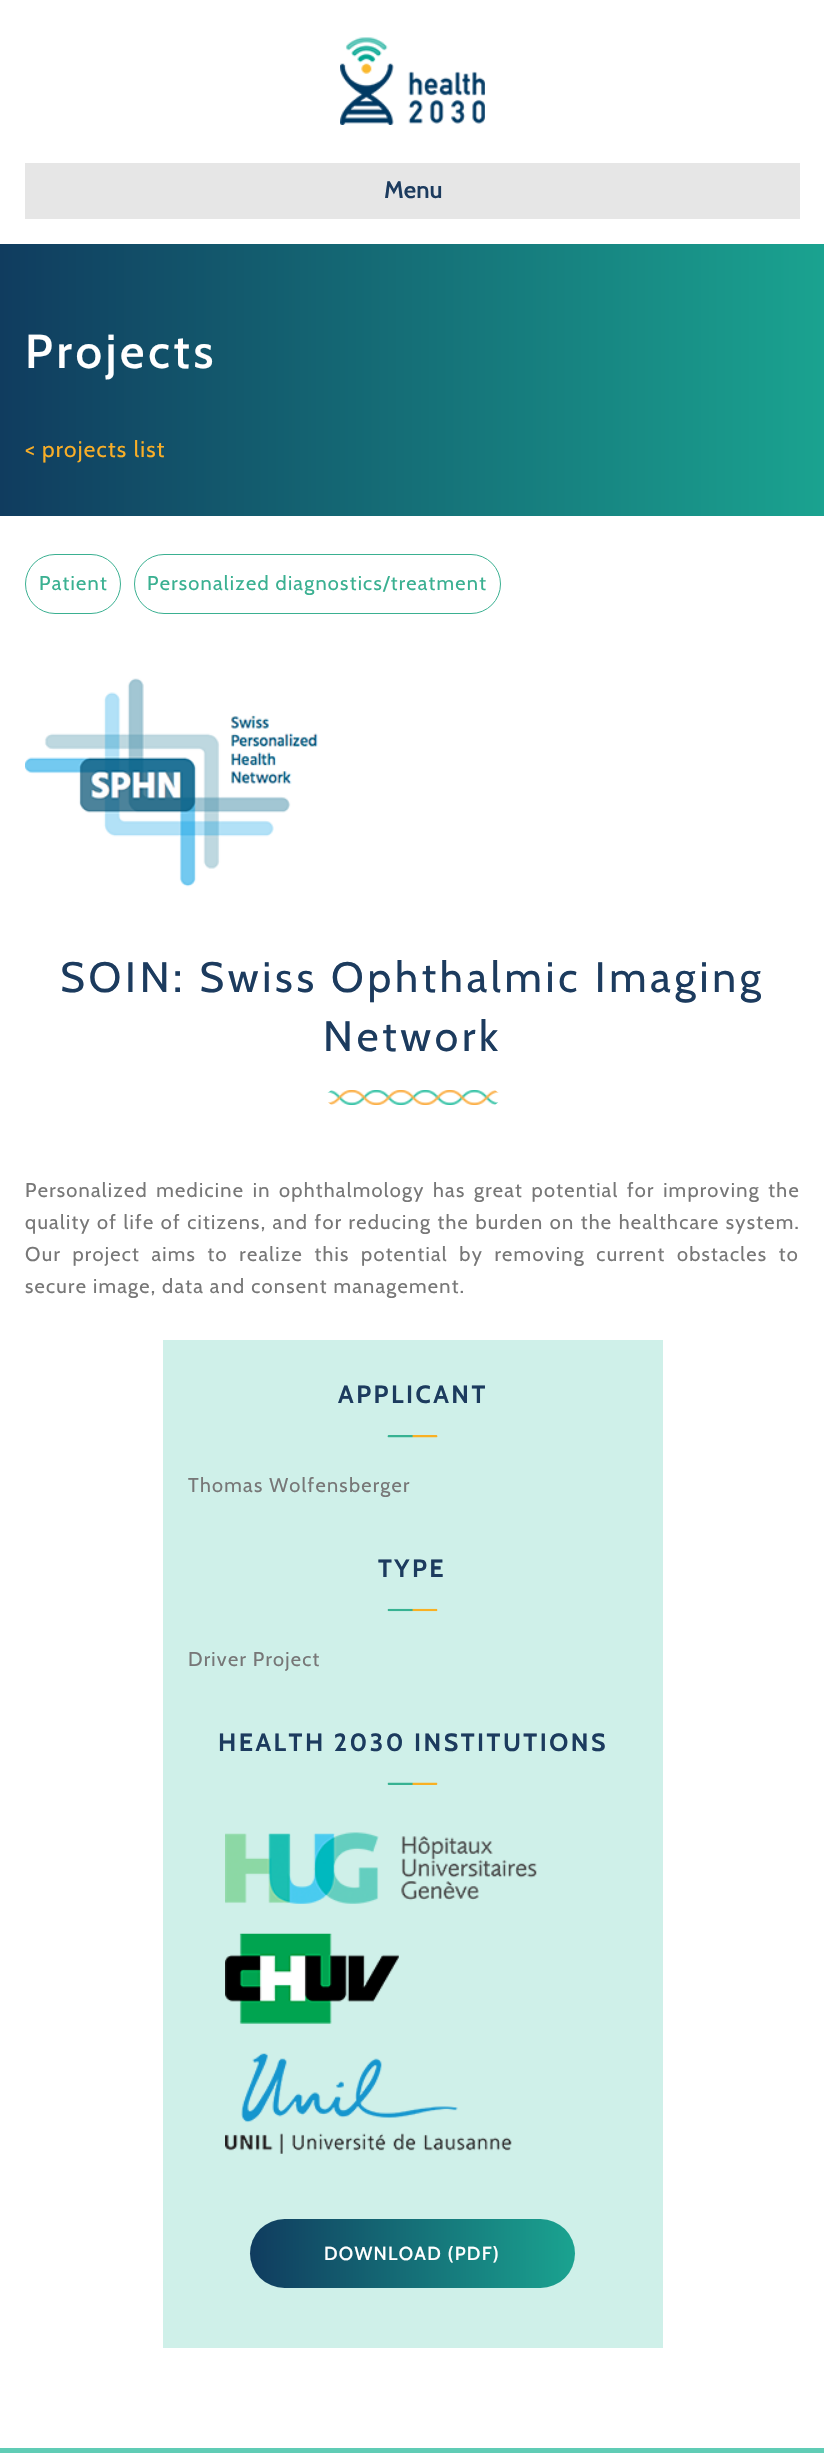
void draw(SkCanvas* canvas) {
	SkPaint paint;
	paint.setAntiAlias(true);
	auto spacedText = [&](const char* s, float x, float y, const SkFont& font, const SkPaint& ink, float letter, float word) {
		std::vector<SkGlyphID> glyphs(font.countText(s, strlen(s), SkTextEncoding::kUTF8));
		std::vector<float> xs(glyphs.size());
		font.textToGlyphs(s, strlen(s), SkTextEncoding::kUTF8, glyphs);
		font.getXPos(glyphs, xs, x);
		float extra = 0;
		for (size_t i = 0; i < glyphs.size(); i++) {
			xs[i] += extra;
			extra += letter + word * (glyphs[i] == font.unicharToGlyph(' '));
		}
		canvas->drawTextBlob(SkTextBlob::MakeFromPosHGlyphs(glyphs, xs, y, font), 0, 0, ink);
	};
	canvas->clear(0xffffffff);
	canvas->drawImageRect(SkImages::DeferredFromEncodedData(SkData::MakeFromFileName("img1.png")), SkRect::MakeXYWH(340, 37, 145, 88), SkSamplingOptions());
	paint.setColor(0xffe6e6e6);
	canvas->drawRect(SkRect::MakeXYWH(25, 163, 775, 56), paint);
	SkFont f1(fontMgr->matchFamilyStyle("Cabin", SkFontStyle(600, SkFontStyle::kNormal_Width, SkFontStyle::kUpright_Slant)), 24);
	f1.setSubpixel(true);
	paint.setColor(0xff1c3b5e);
	canvas->drawString("Menu", 384, 198, f1, paint);
	{
		const SkColor colors[] = {0xff103c5f, 0xff1aa390};
		const float stops[] = {0, 1};
		const SkPoint ends[] = {{0, 380}, {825, 380}};
		paint.setShader(SkGradientShader::MakeLinear(ends, colors, stops, 2, SkTileMode::kClamp));
		paint.setAlpha(255);
	}
	canvas->drawRect(SkRect::MakeXYWH(0, 244, 824, 272), paint);
	SkFont f2(fontMgr->matchFamilyStyle("Cabin", SkFontStyle(500, SkFontStyle::kNormal_Width, SkFontStyle::kUpright_Slant)), 47.5);
	f2.setSubpixel(true);
	paint.setShader(nullptr);
	paint.setColor(0xffffffff);
	spacedText("Projects", 25, 368, f2, paint, 3.75, 0);
	SkFont f3(fontMgr->matchFamilyStyle("Cabin", SkFontStyle::Normal()), 22.5);
	f3.setSubpixel(true);
	paint.setColor(0xfff9ae27);
	spacedText("< projects list", 25, 457, f3, paint, 1.25, 0);
	paint.setStroke(true);
	paint.setStrokeWidth(1);
	paint.setColor(0xff3ab091);
	canvas->drawRoundRect(SkRect::MakeXYWH(25.5, 554.5, 95, 59), 29.5, 29.5, paint);
	SkFont f4(fontMgr->matchFamilyStyle("Cabin", SkFontStyle::Normal()), 20);
	f4.setSubpixel(true);
	paint.setStroke(false);
	spacedText("Patient", 39, 590, f4, paint, 1.25, 0);
	paint.setStroke(true);
	canvas->drawRoundRect(SkRect::MakeXYWH(134.5, 554.5, 366, 59), 29.5, 29.5, paint);
	paint.setStroke(false);
	spacedText("Personalized diagnostics/treatment", 147, 590, f4, paint, 1.25, 0);
	canvas->drawImageRect(SkImages::DeferredFromEncodedData(SkData::MakeFromFileName("img2.png")), SkRect::MakeXYWH(25, 678, 293, 209), SkSamplingOptions());
	SkFont f5(fontMgr->matchFamilyStyle("Cabin", SkFontStyle::Normal()), 42.5);
	f5.setSubpixel(true);
	paint.setColor(0xff1c3b5e);
	spacedText("SOIN: Swiss Ophthalmic Imaging", 60, 992, f5, paint, 3.75, 0);
	spacedText("Network", 323, 1051, f5, paint, 3.75, 0);
	canvas->drawImageRect(SkImages::DeferredFromEncodedData(SkData::MakeFromFileName("img3.png")), SkRect::MakeXYWH(327, 1090, 172, 15), SkSamplingOptions());
	paint.setColor(0xff777777);
	spacedText("Personalized medicine in ophthalmology has great potential for improving the", 25, 1197, f4, paint, 1.25, 2.75);
	spacedText("quality of life of citizens, and for reducing the burden on the healthcare system.", 25, 1229, f4, paint, 1.25, 0.6);
	spacedText("Our project aims to realize this potential by removing current obstacles to", 25, 1261, f4, paint, 1.25, 5.75);
	spacedText("secure image, data and consent management.", 25, 1293, f4, paint, 1.25, 0);
	paint.setColor(0xffcff0e9);
	canvas->drawRect(SkRect::MakeXYWH(163, 1340, 500, 1008), paint);
	SkFont f6(fontMgr->matchFamilyStyle("Cabin", SkFontStyle::Bold()), 25);
	f6.setSubpixel(true);
	paint.setColor(0xff1c3b5e);
	spacedText("APPLICANT", 338, 1403, f6, paint, 2.5, 0);
	canvas->drawImageRect(SkImages::DeferredFromEncodedData(SkData::MakeFromFileName("img4.png")), SkRect::MakeXYWH(387, 1435, 51, 3), SkSamplingOptions());
	paint.setColor(0xff777777);
	spacedText("Thomas Wolfensberger", 188, 1492, f4, paint, 1.25, 0);
	paint.setColor(0xff1c3b5e);
	spacedText("TYPE", 378, 1577, f6, paint, 2.5, 0);
	canvas->drawImageRect(SkImages::DeferredFromEncodedData(SkData::MakeFromFileName("img5.png")), SkRect::MakeXYWH(387, 1608, 51, 4), SkSamplingOptions());
	paint.setColor(0xff777777);
	spacedText("Driver Project", 188, 1666, f4, paint, 1.25, 0);
	paint.setColor(0xff1c3b5e);
	spacedText("HEALTH 2030 INSTITUTIONS", 218, 1751, f6, paint, 2.5, 0);
	canvas->drawImageRect(SkImages::DeferredFromEncodedData(SkData::MakeFromFileName("img6.png")), SkRect::MakeXYWH(387, 1782, 51, 3), SkSamplingOptions());
	canvas->drawImageRect(SkImages::DeferredFromEncodedData(SkData::MakeFromFileName("img7.png")), SkRect::MakeXYWH(225, 1832, 312, 72), SkSamplingOptions());
	canvas->drawImageRect(SkImages::DeferredFromEncodedData(SkData::MakeFromFileName("img8.png")), SkRect::MakeXYWH(225, 1933, 174, 91), SkSamplingOptions());
	canvas->drawImageRect(SkImages::DeferredFromEncodedData(SkData::MakeFromFileName("img9.png")), SkRect::MakeXYWH(225, 2053, 287, 101), SkSamplingOptions());
	{
		const SkColor colors[] = {0xff103c5f, 0xff1aa390};
		const float stops[] = {0, 1};
		const SkPoint ends[] = {{250, 2253}, {575, 2253}};
		paint.setShader(SkGradientShader::MakeLinear(ends, colors, stops, 2, SkTileMode::kClamp));
		paint.setAlpha(255);
	}
	canvas->drawRoundRect(SkRect::MakeXYWH(250, 2219, 325, 69), 34.5, 34.5, paint);
	SkFont f7(fontMgr->matchFamilyStyle("Cabin", SkFontStyle(500, SkFontStyle::kNormal_Width, SkFontStyle::kUpright_Slant)), 18.75);
	f7.setSubpixel(true);
	paint.setShader(nullptr);
	paint.setColor(0xffffffff);
	spacedText("DOWNLOAD (PDF)", 324, 2260, f7, paint, 1.25, 0);
	paint.setColor(0xff60ccb5);
	canvas->drawRect(SkRect::MakeXYWH(0, 2448, 824, 5), paint);
}
